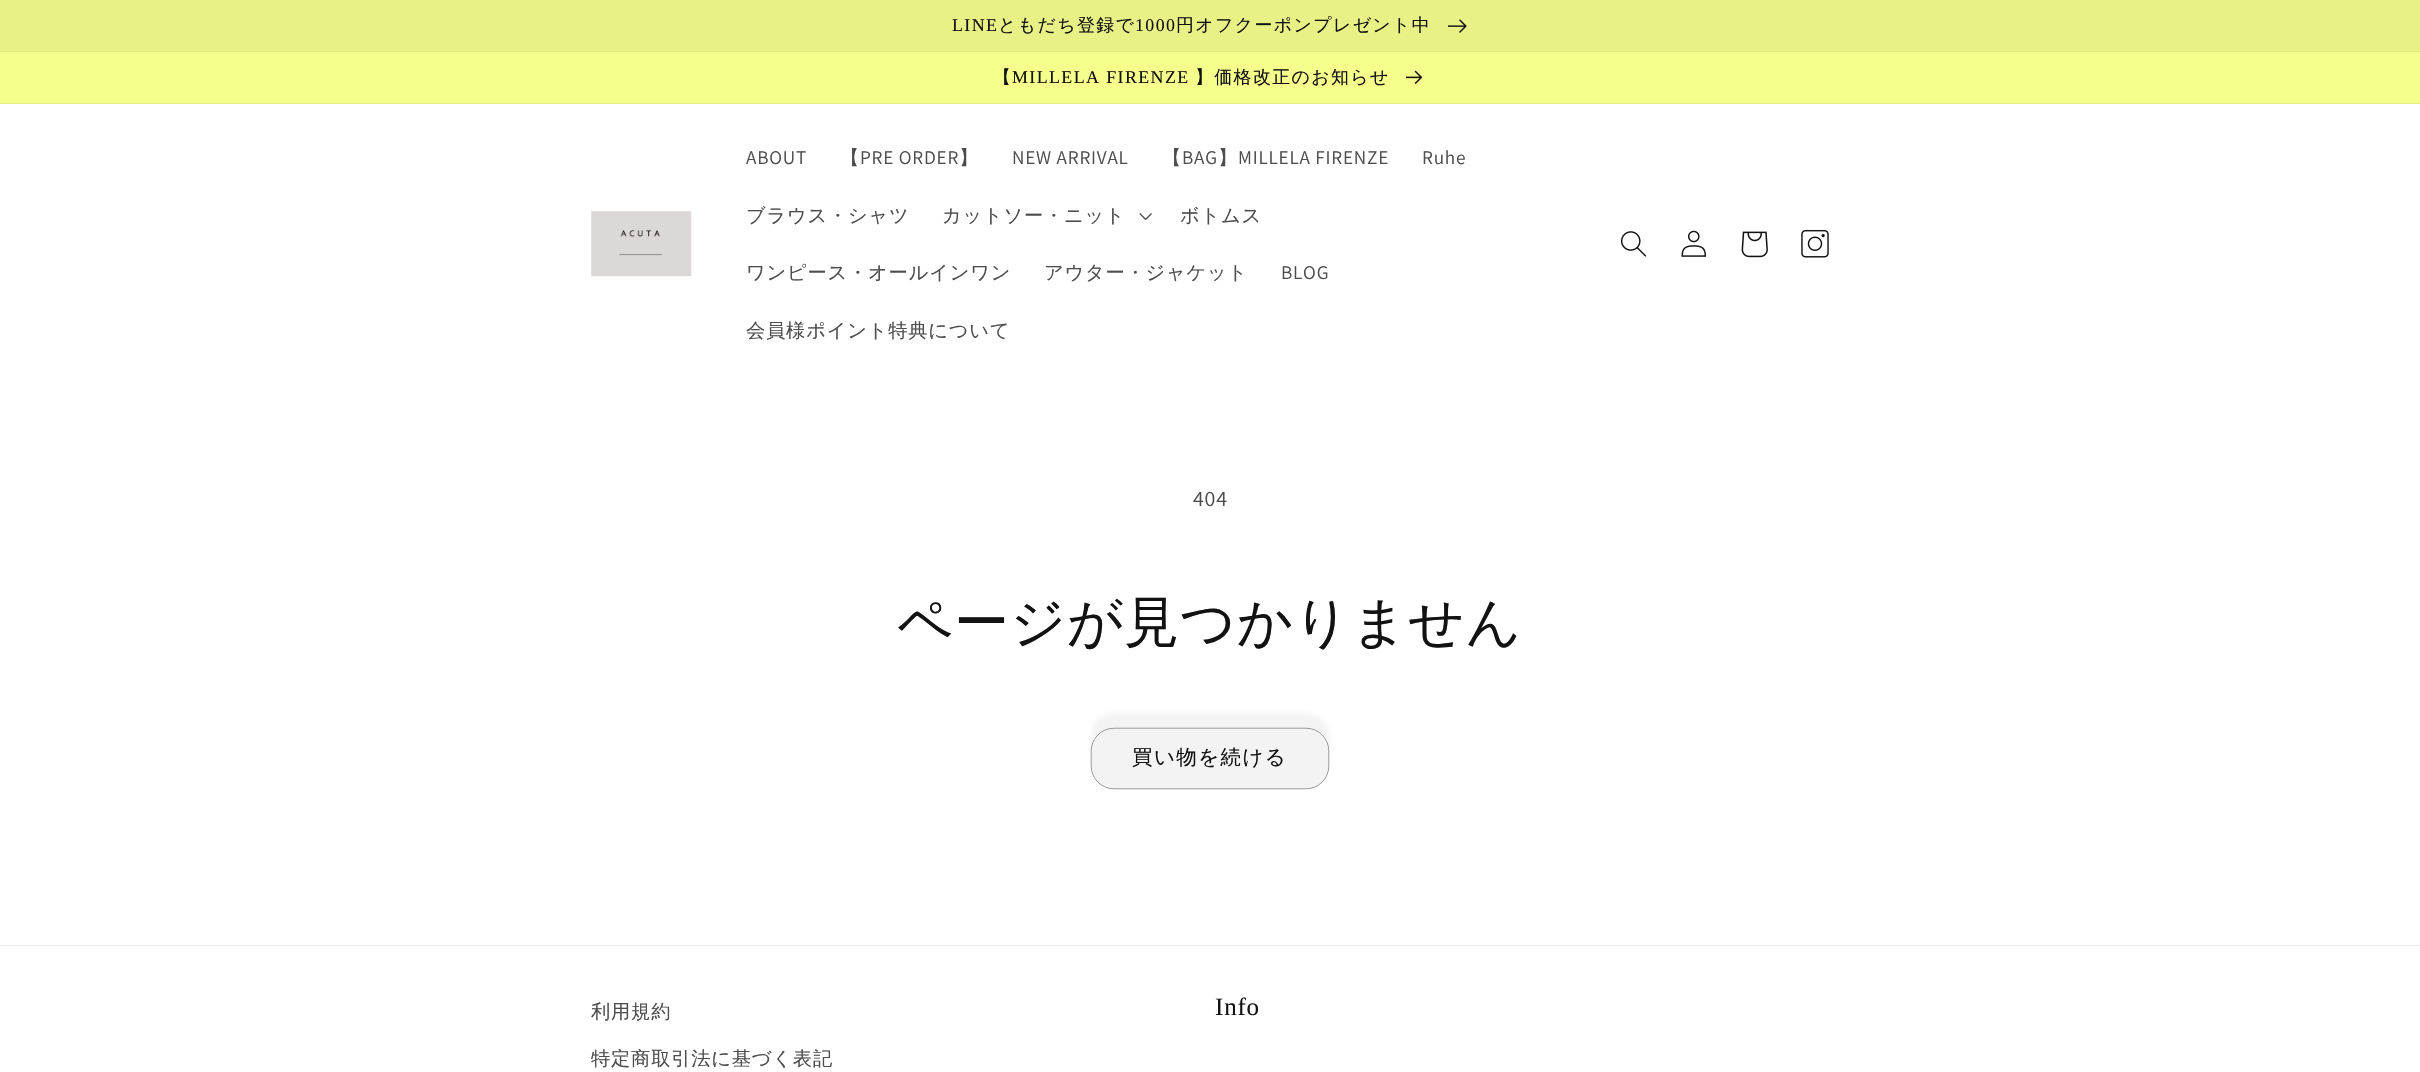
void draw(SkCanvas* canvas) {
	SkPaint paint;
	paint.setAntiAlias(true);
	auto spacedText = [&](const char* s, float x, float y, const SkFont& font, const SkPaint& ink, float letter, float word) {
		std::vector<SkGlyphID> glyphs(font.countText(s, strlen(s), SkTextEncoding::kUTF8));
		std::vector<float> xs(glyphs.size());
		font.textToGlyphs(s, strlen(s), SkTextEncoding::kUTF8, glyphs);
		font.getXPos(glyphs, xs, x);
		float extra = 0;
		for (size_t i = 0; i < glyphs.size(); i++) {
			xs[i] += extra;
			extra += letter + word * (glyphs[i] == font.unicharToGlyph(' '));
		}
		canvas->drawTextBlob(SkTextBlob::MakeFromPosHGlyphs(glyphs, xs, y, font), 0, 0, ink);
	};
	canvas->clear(0xffffffff);
	{
		const SkColor colors[] = {0xfff5f5f5, 0xfff5ff8c, 0xfff5ff8c};
		const float stops[] = {0, 0.05, 0.96};
		const SkPoint ends[] = {{2184, 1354}, {236, -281}};
		paint.setShader(SkGradientShader::MakeLinear(ends, colors, stops, 3, SkTileMode::kClamp));
		paint.setAlpha(255);
	}
	canvas->drawRect(SkRect::MakeXYWH(0, 52, 2420, 1), paint);
	paint.setShader(nullptr);
	paint.setColor(0xffe3ec82);
	canvas->drawRect(SkRect::MakeXYWH(0, 51, 2420, 1), paint);
	paint.setColor(0xffe7f185);
	canvas->drawRect(SkRect::MakeXYWH(0, 0, 2420, 51), paint);
	SkFont f1(fontMgr->matchFamilyStyle("Liberation Serif", SkFontStyle::Normal()), 17.9);
	f1.setSubpixel(true);
	paint.setColor(0xff121212);
	spacedText("LINE", 952, 31, f1, paint, 1.4, 0);
	SkFont f2(fontMgr->matchFamilyStyle("WenQuanYi Zen Hei", SkFontStyle(500, SkFontStyle::kNormal_Width, SkFontStyle::kUpright_Slant)), 17.9);
	f2.setSubpixel(true);
	spacedText("ともだち登録で", 998, 31, f2, paint, 1.4, 0);
	spacedText("1000", 1135, 31, f1, paint, 1.4, 0);
	spacedText("円オフクーポンプレゼント中", 1176, 31, f2, paint, 1.4, 0);
	canvas->drawImageRect(SkImages::DeferredFromEncodedData(SkData::MakeFromFileName("img1.png")), SkRect::MakeXYWH(1448, 19, 19, 14), SkSamplingOptions());
	{
		const SkColor colors[] = {0xfff5f5f5, 0xfff5ff8c, 0xfff5ff8c};
		const float stops[] = {0, 0.05, 0.96};
		const SkPoint ends[] = {{2184, 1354}, {236, -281}};
		paint.setShader(SkGradientShader::MakeLinear(ends, colors, stops, 3, SkTileMode::kClamp));
		paint.setAlpha(255);
	}
	canvas->drawRect(SkRect::MakeXYWH(0, 53, 2420, 50), paint);
	paint.setShader(nullptr);
	paint.setColor(0xffe3ec82);
	canvas->drawRect(SkRect::MakeXYWH(0, 103, 2420, 1), paint);
	paint.setColor(0xff121212);
	spacedText("【", 993, 83, f2, paint, 1.4, 0);
	spacedText("MILLELA FIRENZE", 1012, 83, f1, paint, 1.4, 0);
	spacedText("】価格改正のお知らせ", 1195, 83, f2, paint, 1.4, 0);
	canvas->drawImageRect(SkImages::DeferredFromEncodedData(SkData::MakeFromFileName("img2.png")), SkRect::MakeXYWH(1406, 70, 16, 14), SkSamplingOptions());
	canvas->drawImageRect(SkImages::DeferredFromEncodedData(SkData::MakeFromFileName("img3.png")), SkRect::MakeXYWH(591, 211, 101, 66), SkSamplingOptions());
	SkFont f3(fontMgr->matchFamilyStyle("Assistant", SkFontStyle::Normal()), 19.25);
	f3.setSubpixel(true);
	paint.setColor(0xff4d4d4d);
	spacedText("ABOUT", 746, 164, f3, paint, 0.8, 0);
	SkFont f4(fontMgr->matchFamilyStyle("WenQuanYi Zen Hei", SkFontStyle(500, SkFontStyle::kNormal_Width, SkFontStyle::kUpright_Slant)), 19.25);
	f4.setSubpixel(true);
	spacedText("【", 840, 164, f4, paint, 0.8, 0);
	spacedText("PRE ORDER", 860, 164, f3, paint, 0.8, 0);
	spacedText("】", 959, 164, f4, paint, 0.8, 0);
	spacedText("NEW ARRIVAL", 1012, 164, f3, paint, 0.8, 0);
	spacedText("【", 1162, 164, f4, paint, 0.8, 0);
	spacedText("BAG", 1182, 164, f3, paint, 0.8, 0);
	spacedText("】", 1218, 164, f4, paint, 0.8, 0);
	spacedText("MILLELA FIRENZE", 1238, 164, f3, paint, 0.8, 0);
	spacedText("Ruhe", 1422, 164, f3, paint, 0.8, 0);
	spacedText("ブラウス・シャツ", 746, 222, f4, paint, 0.8, 0);
	spacedText("カットソー・ニット", 942, 222, f4, paint, 0.8, 0);
	canvas->drawImageRect(SkImages::DeferredFromEncodedData(SkData::MakeFromFileName("img4.png")), SkRect::MakeXYWH(1139, 213, 13, 7), SkSamplingOptions());
	spacedText("ボトムス", 1180, 222, f4, paint, 0.8, 0);
	spacedText("ワンピース・オールインワン", 746, 279, f4, paint, 0.8, 0);
	spacedText("アウター・ジャケット", 1044, 279, f4, paint, 0.8, 0);
	spacedText("BLOG", 1281, 279, f3, paint, 0.8, 0);
	spacedText("会員様ポイント特典について", 746, 337, f4, paint, 0.8, 0);
	canvas->drawImageRect(SkImages::DeferredFromEncodedData(SkData::MakeFromFileName("img5.png")), SkRect::MakeXYWH(1621, 231, 26, 26), SkSamplingOptions());
	canvas->drawImageRect(SkImages::DeferredFromEncodedData(SkData::MakeFromFileName("img6.png")), SkRect::MakeXYWH(1681, 230, 26, 27), SkSamplingOptions());
	canvas->drawImageRect(SkImages::DeferredFromEncodedData(SkData::MakeFromFileName("img7.png")), SkRect::MakeXYWH(1741, 231, 27, 27), SkSamplingOptions());
	canvas->drawImageRect(SkImages::DeferredFromEncodedData(SkData::MakeFromFileName("img8.png")), SkRect::MakeXYWH(1801, 230, 28, 28), SkSamplingOptions());
	SkFont f5(fontMgr->matchFamilyStyle("Assistant", SkFontStyle::Normal()), 22);
	f5.setSubpixel(true);
	spacedText("404", 1193, 506, f5, paint, 0.8, 0);
	SkFont f6(fontMgr->matchFamilyStyle("WenQuanYi Zen Hei", SkFontStyle(500, SkFontStyle::kNormal_Width, SkFontStyle::kUpright_Slant)), 55);
	f6.setSubpixel(true);
	paint.setColor(0xff121212);
	spacedText("ページが見つかりません", 897, 641, f6, paint, 0.8, 0);
	paint.setColor(0x0d121212);
	paint.setMaskFilter(SkMaskFilter::MakeBlur(kNormal_SkBlurStyle, 3));
	canvas->drawRoundRect(SkRect::MakeXYWH(1091, 713, 238, 61), 23, 23, paint);
	paint.setMaskFilter(nullptr);
	paint.setColor(0xfff3f3f3);
	canvas->drawRoundRect(SkRect::MakeXYWH(1091, 728, 238, 61), 23, 23, paint);
	paint.setStroke(true);
	paint.setStrokeWidth(0.4);
	paint.setColor(0xff121212);
	canvas->drawRoundRect(SkRect::MakeXYWH(1091.2, 728.2, 237.6, 60.6), 22.8, 22.8, paint);
	SkFont f7(fontMgr->matchFamilyStyle("WenQuanYi Zen Hei", SkFontStyle(500, SkFontStyle::kNormal_Width, SkFontStyle::kUpright_Slant)), 20.5);
	f7.setSubpixel(true);
	paint.setStroke(false);
	spacedText("買い物を続ける", 1132, 764, f7, paint, 1.4, 0);
	paint.setColor(0xffececec);
	canvas->drawRect(SkRect::MakeXYWH(0, 945, 2420, 1), paint);
	paint.setColor(0xff4d4d4d);
	spacedText("利用規約", 591, 1018, f4, paint, 0.8, 0);
	spacedText("特定商取引法に基づく表記", 591, 1065, f4, paint, 0.8, 0);
	SkFont f8(fontMgr->matchFamilyStyle("Liberation Serif", SkFontStyle::Normal()), 25);
	f8.setSubpixel(true);
	paint.setColor(0xff121212);
	spacedText("Info", 1215, 1015, f8, paint, 0.8, 0);
}
